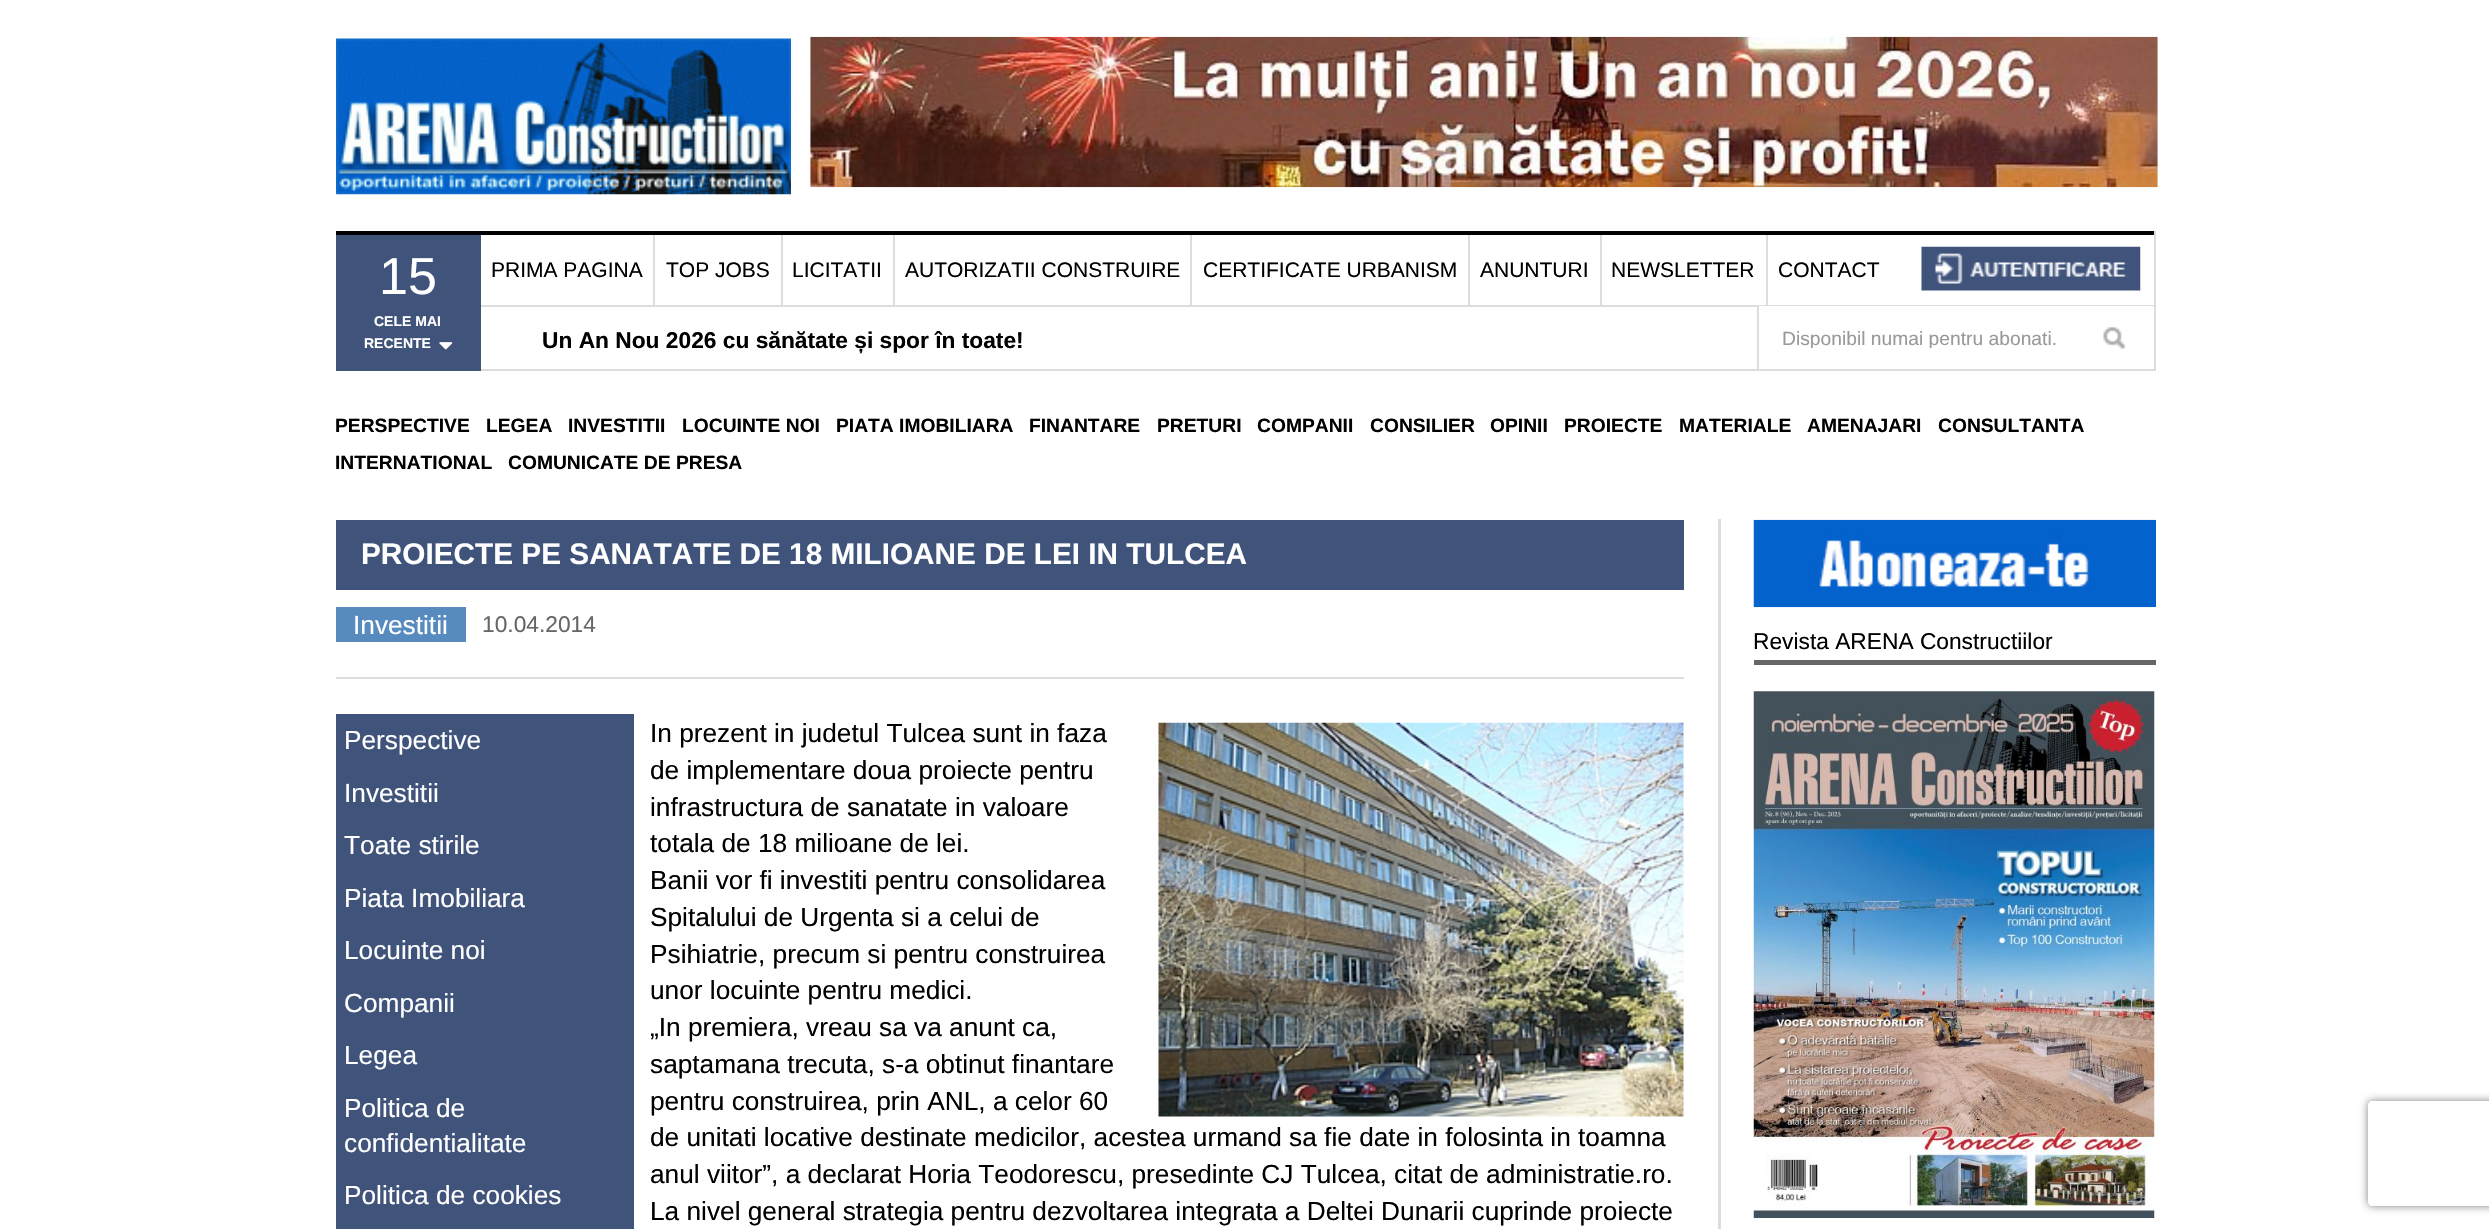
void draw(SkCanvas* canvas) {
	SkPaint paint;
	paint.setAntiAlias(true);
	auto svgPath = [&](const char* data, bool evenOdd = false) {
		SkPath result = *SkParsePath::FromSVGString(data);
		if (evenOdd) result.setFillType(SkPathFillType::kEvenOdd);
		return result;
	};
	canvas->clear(0xffffffff);
	canvas->drawImageRect(SkImages::DeferredFromEncodedData(SkData::MakeFromFileName("img1.png")), SkRect::MakeXYWH(336, 38, 455, 157), SkSamplingOptions());
	canvas->drawImageRect(SkImages::DeferredFromEncodedData(SkData::MakeFromFileName("img2.png")), SkRect::MakeXYWH(810, 36, 1348, 152), SkSamplingOptions());
	paint.setColor(0xff3f537b);
	canvas->drawRect(SkRect::MakeXYWH(336, 235, 145, 136), paint);
	SkFont f1(fontMgr->matchFamilyStyle("Liberation Sans", SkFontStyle::Normal()), 52);
	f1.setSubpixel(true);
	paint.setColor(0xffffffff);
	canvas->drawString("15", 379, 294, f1, paint);
	SkFont f2(fontMgr->matchFamilyStyle("Liberation Sans", SkFontStyle::Bold()), 14);
	f2.setSubpixel(true);
	canvas->drawString("CELE MAI", 374, 326, f2, paint);
	canvas->drawString("RECENTE", 364, 348, f2, paint);
	canvas->drawImageRect(SkImages::DeferredFromEncodedData(SkData::MakeFromFileName("img3.png")), SkRect::MakeXYWH(439, 342, 14, 8), SkSamplingOptions());
	paint.setColor(0xffdddddd);
	canvas->drawRect(SkRect::MakeXYWH(2154, 231, 2, 140), paint);
	paint.setColor(0xff000000);
	canvas->drawRect(SkRect::MakeXYWH(336, 231, 1818, 4), paint);
	paint.setColor(0xffdddddd);
	canvas->drawRect(SkRect::MakeXYWH(481, 305, 1673, 2), paint);
	SkFont f3(fontMgr->matchFamilyStyle("Liberation Sans", SkFontStyle::Normal()), 21);
	f3.setSubpixel(true);
	paint.setColor(0xff000000);
	canvas->drawString("PRIMA PAGINA", 491, 277, f3, paint);
	paint.setColor(0xffdddddd);
	canvas->drawRect(SkRect::MakeXYWH(653, 235, 2, 70), paint);
	paint.setColor(0xff000000);
	canvas->drawString("TOP JOBS", 666, 277, f3, paint);
	paint.setColor(0xffdddddd);
	canvas->drawRect(SkRect::MakeXYWH(781, 235, 2, 70), paint);
	paint.setColor(0xff000000);
	canvas->drawString("LICITATII", 792, 277, f3, paint);
	paint.setColor(0xffdddddd);
	canvas->drawRect(SkRect::MakeXYWH(893, 235, 2, 70), paint);
	paint.setColor(0xff000000);
	canvas->drawString("AUTORIZATII CONSTRUIRE", 905, 277, f3, paint);
	paint.setColor(0xffdddddd);
	canvas->drawRect(SkRect::MakeXYWH(1190, 235, 2, 70), paint);
	paint.setColor(0xff000000);
	canvas->drawString("CERTIFICATE URBANISM", 1203, 277, f3, paint);
	paint.setColor(0xffdddddd);
	canvas->drawRect(SkRect::MakeXYWH(1468, 235, 2, 70), paint);
	paint.setColor(0xff000000);
	canvas->drawString("ANUNTURI", 1480, 277, f3, paint);
	paint.setColor(0xffdddddd);
	canvas->drawRect(SkRect::MakeXYWH(1600, 235, 2, 70), paint);
	paint.setColor(0xff000000);
	canvas->drawString("NEWSLETTER", 1611, 277, f3, paint);
	paint.setColor(0xffdddddd);
	canvas->drawRect(SkRect::MakeXYWH(1766, 235, 2, 70), paint);
	paint.setColor(0xff000000);
	canvas->drawString("CONTACT", 1778, 277, f3, paint);
	canvas->drawImageRect(SkImages::DeferredFromEncodedData(SkData::MakeFromFileName("img4.png")), SkRect::MakeXYWH(1921, 246, 220, 45), SkSamplingOptions());
	paint.setColor(0xffdddddd);
	canvas->drawRect(SkRect::MakeXYWH(481, 369, 1675, 2), paint);
	SkFont f4(fontMgr->matchFamilyStyle("Liberation Sans", SkFontStyle::Bold()), 22.75);
	f4.setSubpixel(true);
	paint.setColor(0xff000000);
	canvas->drawString("Un An Nou 2026 cu sănătate și spor în toate!", 542, 348, f4, paint);
	paint.setColor(0xffffffff);
	canvas->drawRect(SkRect::MakeXYWH(1759, 306, 394, 1), paint);
	paint.setColor(0xffdddddd);
	canvas->drawRect(SkRect::MakeXYWH(1757, 306, 2, 63), paint);
	canvas->save();
	canvas->clipRect(SkRect::MakeXYWH(1783, 327, 319, 21));
	SkFont f5(fontMgr->matchFamilyStyle("Liberation Sans", SkFontStyle::Normal()), 19.25);
	f5.setSubpixel(true);
	paint.setColor(0xff999999);
	canvas->drawString("Disponibil numai pentru abonati.", 1782, 345, f5, paint);
	canvas->restore();
	canvas->drawImageRect(SkImages::DeferredFromEncodedData(SkData::MakeFromFileName("img5.png")), SkRect::MakeXYWH(2103, 327, 23, 23), SkSamplingOptions());
	SkFont f6(fontMgr->matchFamilyStyle("Liberation Sans", SkFontStyle::Bold()), 19.25);
	f6.setSubpixel(true);
	paint.setColor(0xff000000);
	canvas->drawString("PERSPECTIVE", 335, 432, f6, paint);
	canvas->drawString("LEGEA", 486, 432, f6, paint);
	canvas->drawString("INVESTITII", 568, 432, f6, paint);
	canvas->drawString("LOCUINTE NOI", 682, 432, f6, paint);
	canvas->drawString("PIATA IMOBILIARA", 836, 432, f6, paint);
	canvas->drawString("FINANTARE", 1029, 432, f6, paint);
	canvas->drawString("PRETURI", 1157, 432, f6, paint);
	canvas->drawString("COMPANII", 1257, 432, f6, paint);
	canvas->drawString("CONSILIER", 1370, 432, f6, paint);
	canvas->drawString("OPINII", 1490, 432, f6, paint);
	canvas->drawString("PROIECTE", 1564, 432, f6, paint);
	canvas->drawString("MATERIALE", 1679, 432, f6, paint);
	canvas->drawString("AMENAJARI", 1807, 432, f6, paint);
	canvas->drawString("CONSULTANTA", 1938, 432, f6, paint);
	canvas->drawString("INTERNATIONAL", 335, 469, f6, paint);
	canvas->drawString("COMUNICATE DE PRESA", 508, 469, f6, paint);
	paint.setColor(0xffdddddd);
	canvas->drawRect(SkRect::MakeXYWH(1718, 519, 3, 710), paint);
	paint.setColor(0xff3f537b);
	canvas->drawRect(SkRect::MakeXYWH(336, 520, 1348, 70), paint);
	SkFont f7(fontMgr->matchFamilyStyle("Liberation Sans", SkFontStyle::Bold()), 29.75);
	f7.setSubpixel(true);
	paint.setColor(0xffffffff);
	canvas->drawString("PROIECTE PE SANATATE DE 18 MILIOANE DE LEI IN TULCEA", 361, 564, f7, paint);
	paint.setColor(0xffdddddd);
	canvas->drawRect(SkRect::MakeXYWH(336, 677, 1348, 2), paint);
	paint.setColor(0xff578bbf);
	canvas->drawRect(SkRect::MakeXYWH(336, 607, 130, 35), paint);
	SkFont f8(fontMgr->matchFamilyStyle("Liberation Sans", SkFontStyle::Normal()), 26.25);
	f8.setSubpixel(true);
	paint.setColor(0xffffffff);
	canvas->drawString("Investitii", 353, 634, f8, paint);
	SkFont f9(fontMgr->matchFamilyStyle("Liberation Sans", SkFontStyle::Normal()), 22.75);
	f9.setSubpixel(true);
	paint.setColor(0xff666666);
	canvas->drawString("10.04.2014", 482, 632, f9, paint);
	paint.setColor(0xff3f537b);
	canvas->drawRect(SkRect::MakeXYWH(336, 714, 298, 515), paint);
	paint.setColor(0xffffffff);
	canvas->drawString("Perspective", 344, 749, f8, paint);
	canvas->drawString("Investitii", 344, 802, f8, paint);
	canvas->drawString("Toate stirile", 344, 854, f8, paint);
	canvas->drawString("Piata Imobiliara", 344, 907, f8, paint);
	canvas->drawString("Locuinte noi", 344, 959, f8, paint);
	canvas->drawString("Companii", 344, 1012, f8, paint);
	canvas->drawString("Legea", 344, 1064, f8, paint);
	canvas->drawString("Politica de", 344, 1117, f8, paint);
	canvas->drawString("confidentialitate", 344, 1152, f8, paint);
	canvas->drawString("Politica de cookies", 344, 1204, f8, paint);
	paint.setColor(0xff000000);
	canvas->drawString("In prezent in judetul Tulcea sunt in faza", 650, 742, f8, paint);
	canvas->drawImageRect(SkImages::DeferredFromEncodedData(SkData::MakeFromFileName("img6.png")), SkRect::MakeXYWH(1158, 722, 526, 395), SkSamplingOptions());
	canvas->drawString("de implementare doua proiecte pentru", 650, 779, f8, paint);
	canvas->drawString("infrastructura de sanatate in valoare", 650, 816, f8, paint);
	canvas->drawString("totala de 18 milioane de lei.", 650, 852, f8, paint);
	canvas->drawString("Banii vor fi investiti pentru consolidarea", 650, 889, f8, paint);
	canvas->drawString("Spitalului de Urgenta si a celui de", 650, 926, f8, paint);
	canvas->drawString("Psihiatrie, precum si pentru construirea", 650, 963, f8, paint);
	canvas->drawString("unor locuinte pentru medici.", 650, 999, f8, paint);
	canvas->drawString("„In premiera, vreau sa va anunt ca,", 650, 1036, f8, paint);
	canvas->drawString("saptamana trecuta, s-a obtinut finantare", 650, 1073, f8, paint);
	canvas->drawString("pentru construirea, prin ANL, a celor 60", 650, 1110, f8, paint);
	canvas->drawString("de unitati locative destinate medicilor, acestea urmand sa fie date in folosinta in toamna", 650, 1146, f8, paint);
	canvas->drawString("anul viitor”, a declarat Horia Teodorescu, presedinte CJ Tulcea, citat de administratie.ro.", 650, 1183, f8, paint);
	canvas->drawString("La nivel general strategia pentru dezvoltarea integrata a Deltei Dunarii cuprinde proiecte", 650, 1220, f8, paint);
	canvas->drawImageRect(SkImages::DeferredFromEncodedData(SkData::MakeFromFileName("img7.png")), SkRect::MakeXYWH(1753, 519, 403, 89), SkSamplingOptions());
	canvas->drawString("Revista ARENA Constructiilor", 1753, 649, f9, paint);
	paint.setColor(0xff666666);
	canvas->drawRect(SkRect::MakeXYWH(1754, 660, 402, 5), paint);
	canvas->drawImageRect(SkImages::DeferredFromEncodedData(SkData::MakeFromFileName("img8.png")), SkRect::MakeXYWH(1753, 691, 402, 527), SkSamplingOptions());
	canvas->save();
	canvas->clipPath(svgPath("M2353 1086H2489V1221H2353ZM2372 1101H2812C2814 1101 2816 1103 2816 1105V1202C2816 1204 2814 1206 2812 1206H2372C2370 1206 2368 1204 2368 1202V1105C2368 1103 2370 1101 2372 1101Z", true), true);
	paint.setColor(0xff808080);
	paint.setMaskFilter(SkMaskFilter::MakeBlur(kNormal_SkBlurStyle, 4.5));
	canvas->drawRoundRect(SkRect::MakeXYWH(2368, 1101, 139, 105), 4, 4, paint);
	paint.setMaskFilter(nullptr);
	canvas->restore();
}
